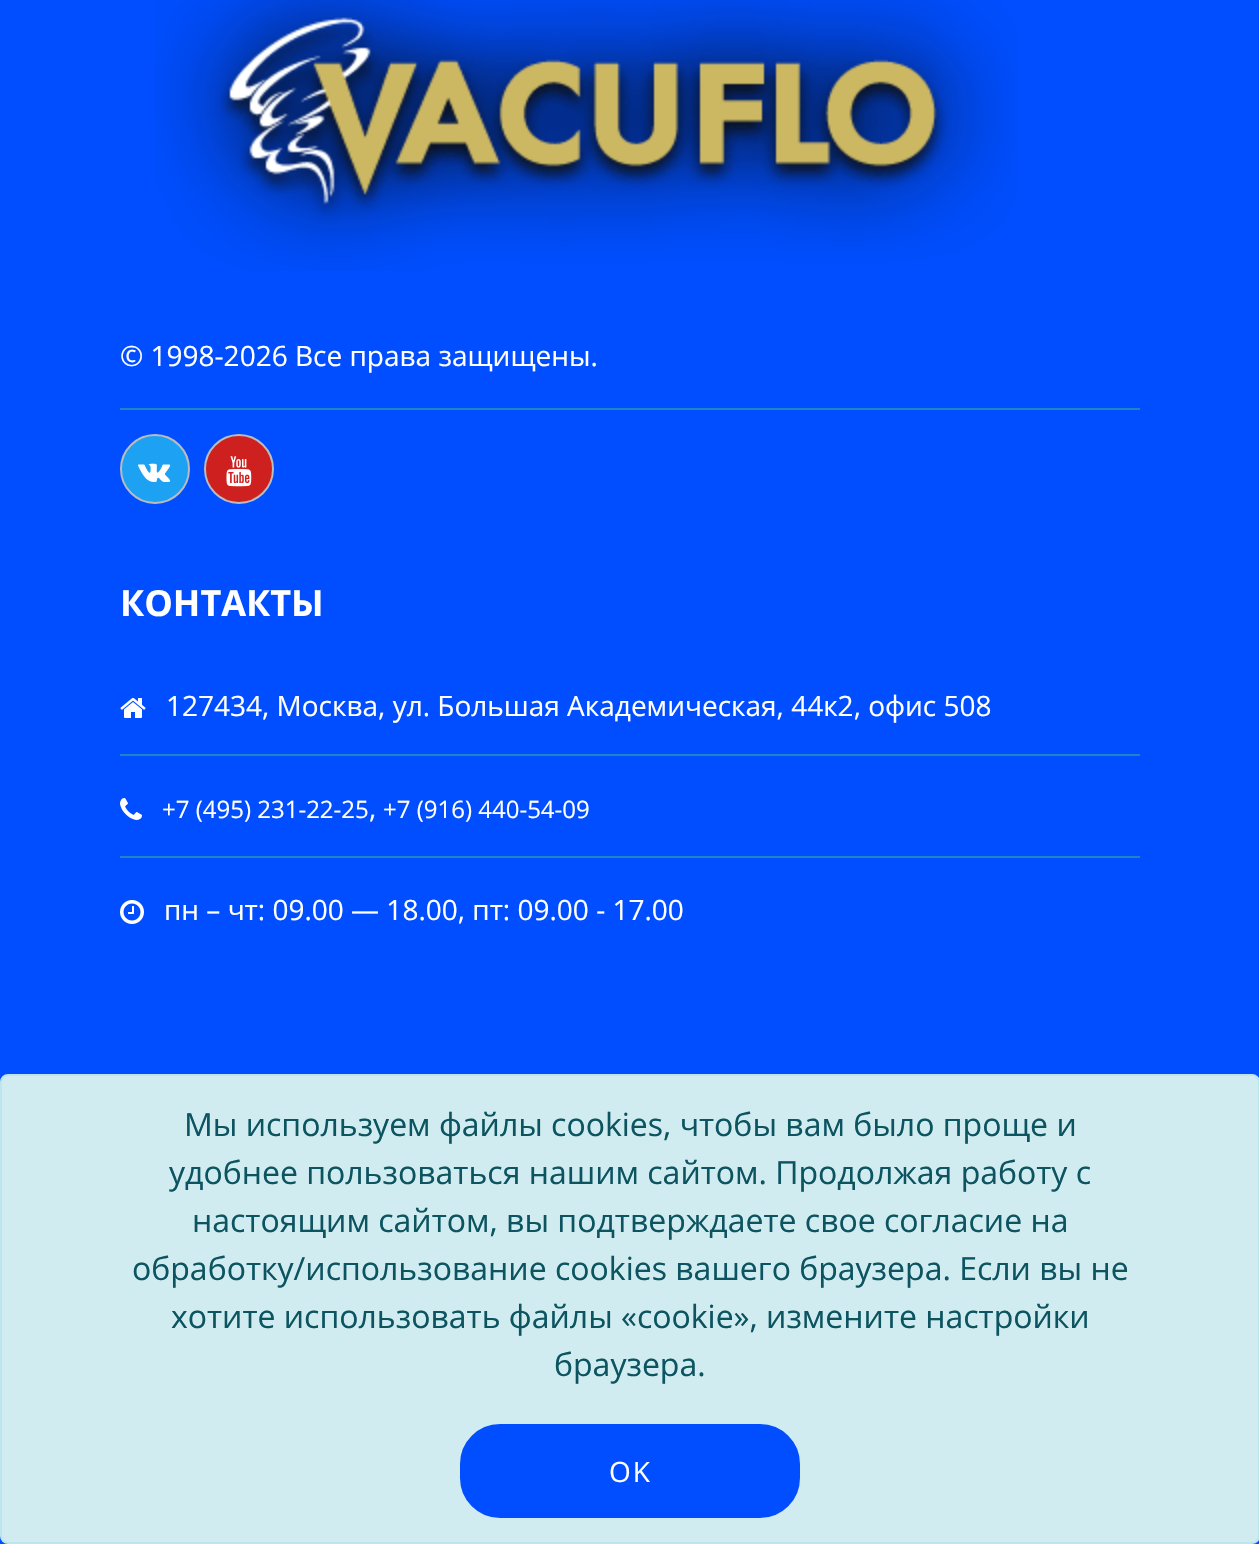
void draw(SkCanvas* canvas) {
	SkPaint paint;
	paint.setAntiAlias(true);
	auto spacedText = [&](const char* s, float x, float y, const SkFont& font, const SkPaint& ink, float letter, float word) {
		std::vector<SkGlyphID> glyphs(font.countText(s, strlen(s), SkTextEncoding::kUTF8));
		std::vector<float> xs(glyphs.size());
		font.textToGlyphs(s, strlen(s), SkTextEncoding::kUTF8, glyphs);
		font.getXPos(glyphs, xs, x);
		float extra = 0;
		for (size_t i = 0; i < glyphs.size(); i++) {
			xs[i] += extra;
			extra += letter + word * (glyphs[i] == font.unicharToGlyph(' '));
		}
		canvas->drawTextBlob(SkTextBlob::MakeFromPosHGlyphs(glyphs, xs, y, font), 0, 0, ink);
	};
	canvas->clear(0xff004eff);
	canvas->drawImageRect(SkImages::DeferredFromEncodedData(SkData::MakeFromFileName("img1.png")), SkRect::MakeXYWH(155, 0, 862, 271), SkSamplingOptions());
	SkFont f1(fontMgr->matchFamilyStyle("Open Sans", SkFontStyle::Normal()), 28);
	f1.setSubpixel(true);
	paint.setColor(0xffffffff);
	canvas->drawString("© 1998-2026 Все права защищены.", 120, 366, f1, paint);
	paint.setColor(0xff1c85c4);
	canvas->drawRect(SkRect::MakeXYWH(120, 408, 1020, 2), paint);
	paint.setColor(0xff1da1f2);
	canvas->drawCircle(155, 469, 34, paint);
	paint.setStroke(true);
	paint.setStrokeWidth(2);
	paint.setColor(0xffbabcbe);
	canvas->drawCircle(155, 469, 34, paint);
	canvas->drawImageRect(SkImages::DeferredFromEncodedData(SkData::MakeFromFileName("img2.png")), SkRect::MakeXYWH(138, 463, 33, 19), SkSamplingOptions());
	paint.setStroke(false);
	paint.setColor(0xffcd201f);
	canvas->drawCircle(239, 469, 34, paint);
	paint.setStroke(true);
	paint.setColor(0xffbabcbe);
	canvas->drawCircle(239, 469, 34, paint);
	canvas->drawImageRect(SkImages::DeferredFromEncodedData(SkData::MakeFromFileName("img3.png")), SkRect::MakeXYWH(226, 456, 26, 31), SkSamplingOptions());
	SkFont f2(fontMgr->matchFamilyStyle("Open Sans", SkFontStyle::Bold()), 36);
	f2.setSubpixel(true);
	paint.setStroke(false);
	paint.setColor(0xffffffff);
	canvas->drawString("КОНТАКТЫ", 120, 616, f2, paint);
	paint.setColor(0xff1c85c4);
	canvas->drawRect(SkRect::MakeXYWH(120, 754, 1020, 2), paint);
	canvas->drawImageRect(SkImages::DeferredFromEncodedData(SkData::MakeFromFileName("img4.png")), SkRect::MakeXYWH(120, 698, 26, 20), SkSamplingOptions());
	paint.setColor(0xffffffff);
	canvas->drawString("127434, Москва, ул. Большая Академическая, 44к2, офис 508", 166, 716, f1, paint);
	paint.setColor(0xff1c85c4);
	canvas->drawRect(SkRect::MakeXYWH(120, 856, 1020, 2), paint);
	canvas->drawImageRect(SkImages::DeferredFromEncodedData(SkData::MakeFromFileName("img5.png")), SkRect::MakeXYWH(120, 798, 22, 22), SkSamplingOptions());
	SkFont f3(fontMgr->matchFamilyStyle("Open Sans", SkFontStyle::Normal()), 24);
	f3.setSubpixel(true);
	paint.setColor(0xffffffff);
	canvas->drawString("+7 (495) 231-22-25", 162, 818, f3, paint);
	canvas->drawString(",", 369, 818, f1, paint);
	canvas->drawString("+7 (916) 440-54-09", 383, 818, f3, paint);
	canvas->drawImageRect(SkImages::DeferredFromEncodedData(SkData::MakeFromFileName("img6.png")), SkRect::MakeXYWH(120, 900, 24, 24), SkSamplingOptions());
	canvas->drawString("пн – чт: 09.00 — 18.00, пт: 09.00 - 17.00", 164, 920, f1, paint);
	paint.setColor(0xffd1ecf1);
	canvas->drawRoundRect(SkRect::MakeXYWH(1, 1075, 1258, 468), 7, 7, paint);
	paint.setStroke(true);
	paint.setColor(0xffbee5eb);
	canvas->drawRoundRect(SkRect::MakeXYWH(1, 1075, 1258, 468), 7, 7, paint);
	SkFont f4(fontMgr->matchFamilyStyle("Open Sans", SkFontStyle::Normal()), 32);
	f4.setSubpixel(true);
	paint.setStroke(false);
	paint.setColor(0xff0c5460);
	canvas->drawString("Мы используем файлы cookies, чтобы вам было проще и", 184, 1136, f4, paint);
	canvas->drawString("удобнее пользоваться нашим сайтом. Продолжая работу с", 169, 1184, f4, paint);
	canvas->drawString("настоящим сайтом, вы подтверждаете свое согласие на", 192, 1232, f4, paint);
	canvas->drawString("обработку/использование cookies вашего браузера. Если вы не", 132, 1280, f4, paint);
	canvas->drawString("хотите использовать файлы «cookie», измените настройки", 171, 1328, f4, paint);
	canvas->drawString("браузера.", 554, 1376, f4, paint);
	paint.setColor(0xff004eff);
	canvas->drawRoundRect(SkRect::MakeXYWH(461, 1425, 338, 92), 39, 39, paint);
	paint.setStroke(true);
	canvas->drawRoundRect(SkRect::MakeXYWH(461, 1425, 338, 92), 39, 39, paint);
	paint.setStroke(false);
	paint.setColor(0xffffffff);
	spacedText("OK", 609, 1482, f1, paint, 2, 0);
}
